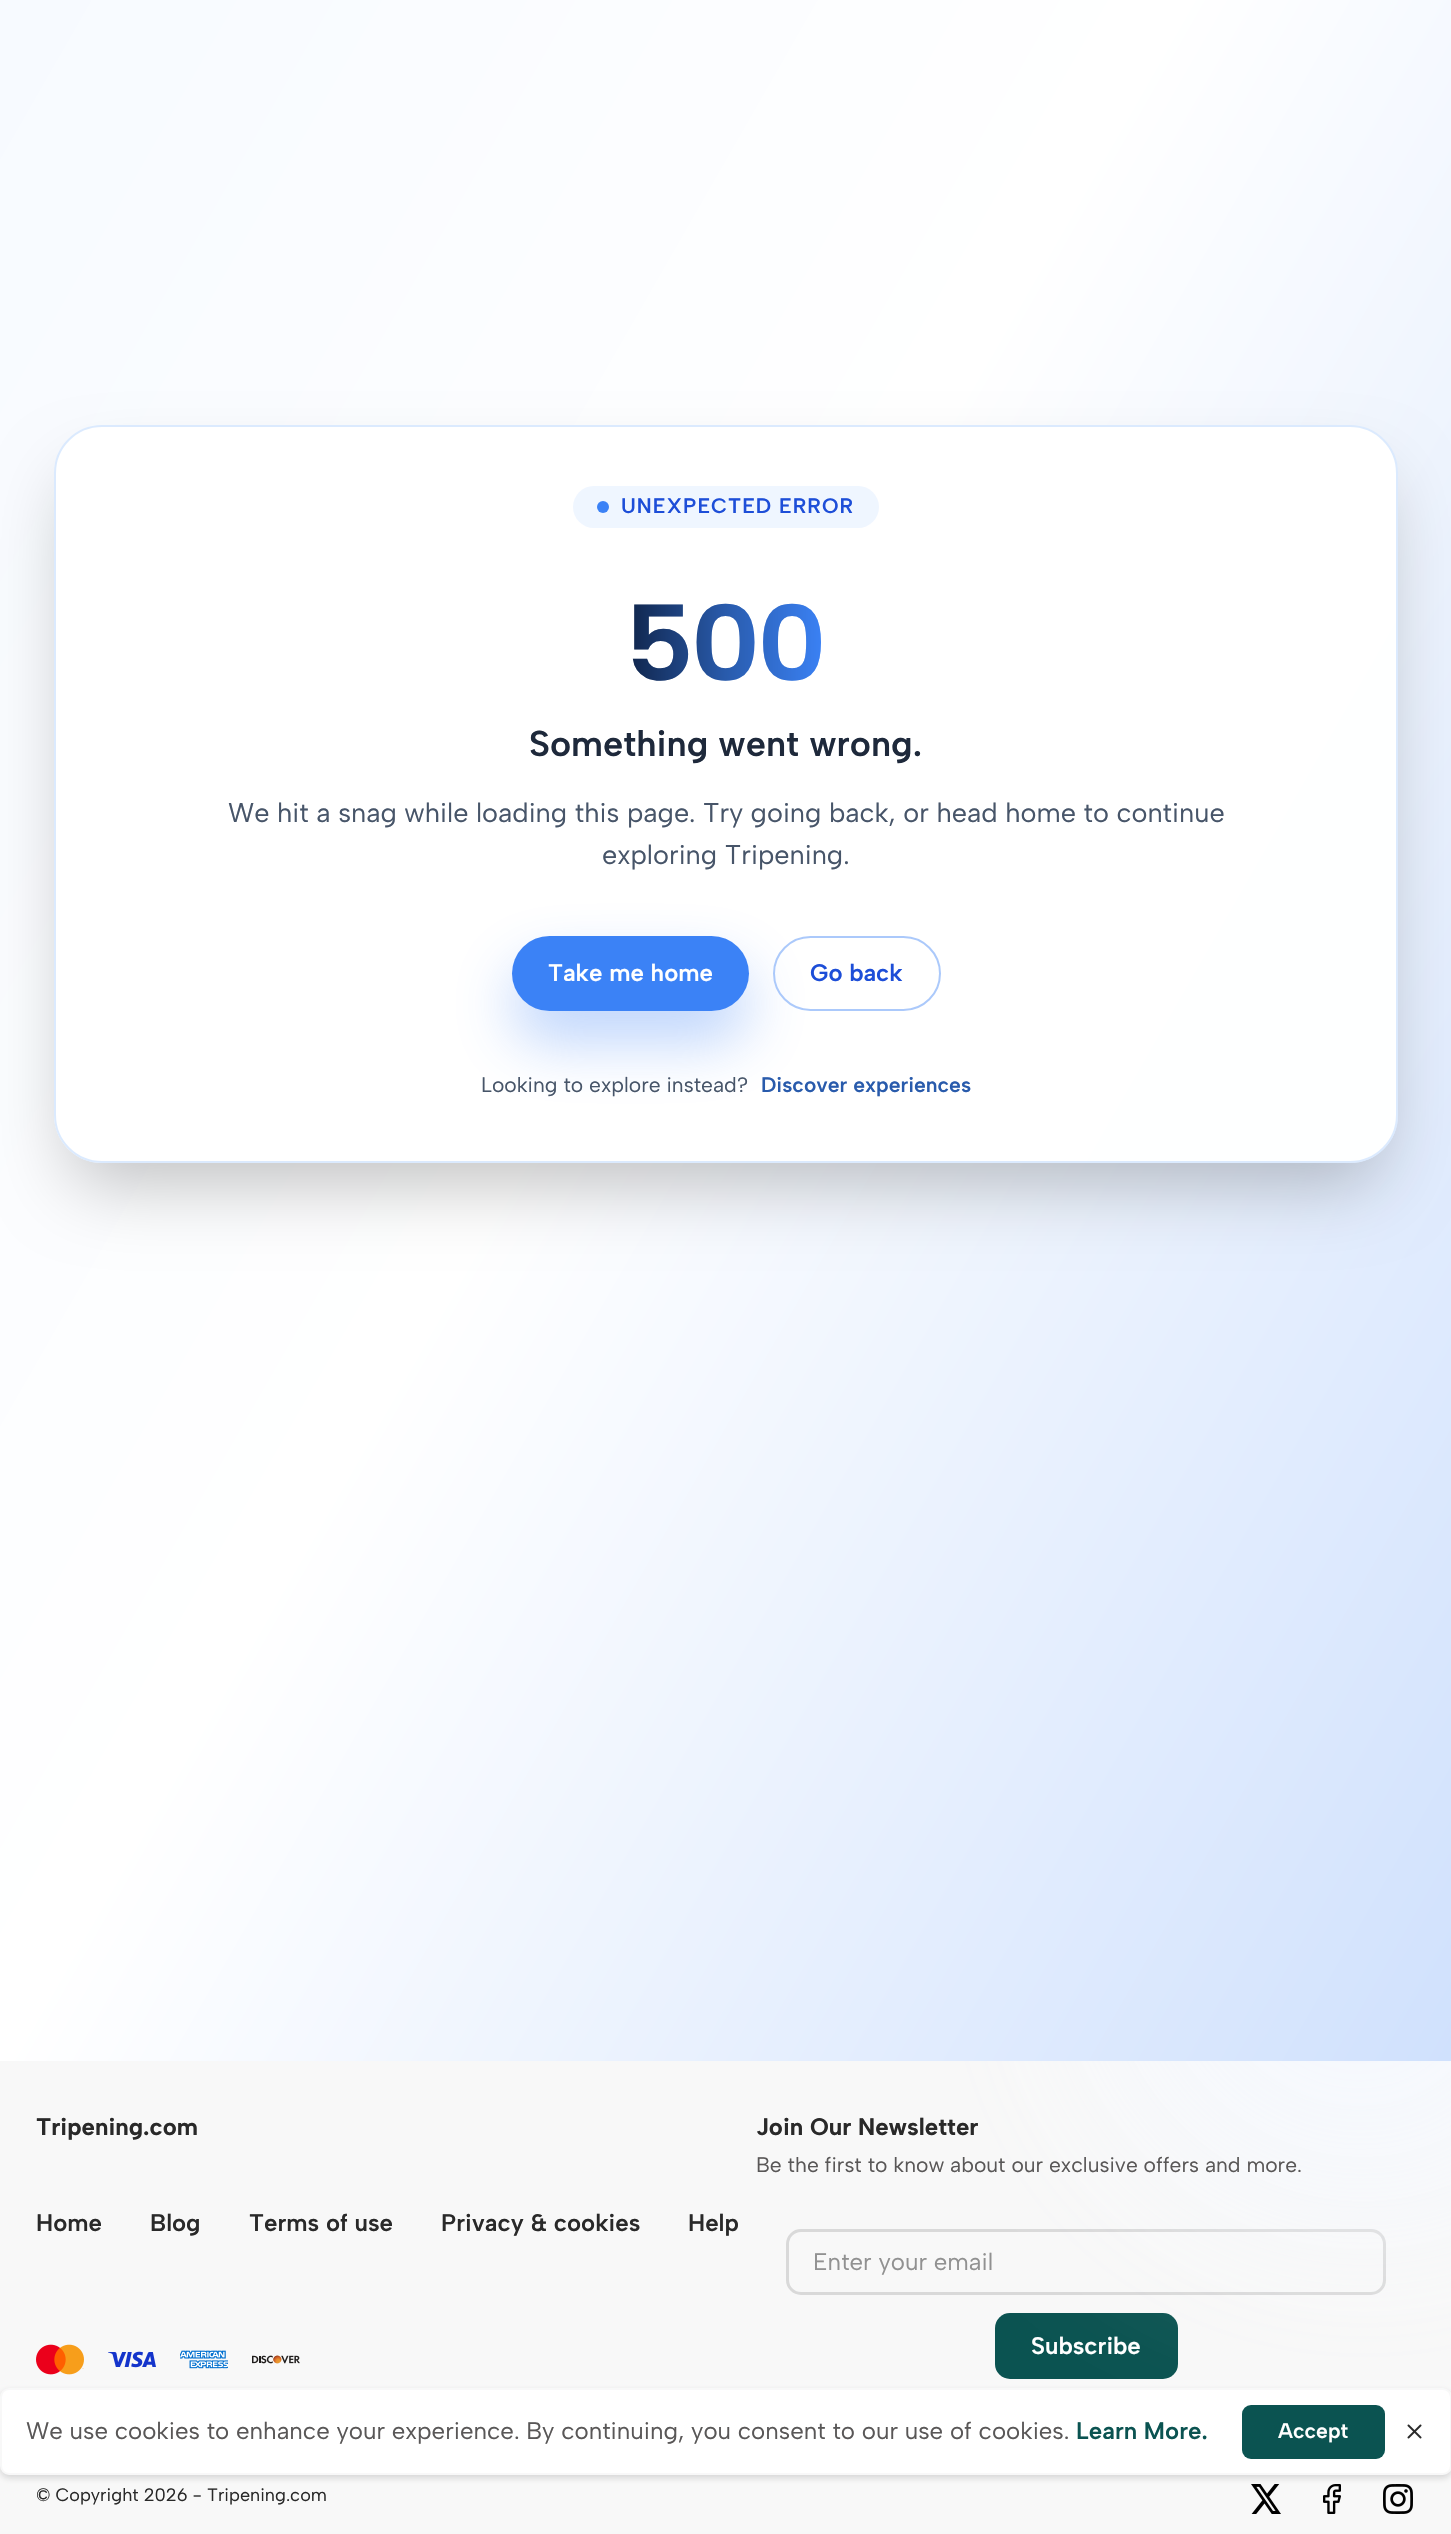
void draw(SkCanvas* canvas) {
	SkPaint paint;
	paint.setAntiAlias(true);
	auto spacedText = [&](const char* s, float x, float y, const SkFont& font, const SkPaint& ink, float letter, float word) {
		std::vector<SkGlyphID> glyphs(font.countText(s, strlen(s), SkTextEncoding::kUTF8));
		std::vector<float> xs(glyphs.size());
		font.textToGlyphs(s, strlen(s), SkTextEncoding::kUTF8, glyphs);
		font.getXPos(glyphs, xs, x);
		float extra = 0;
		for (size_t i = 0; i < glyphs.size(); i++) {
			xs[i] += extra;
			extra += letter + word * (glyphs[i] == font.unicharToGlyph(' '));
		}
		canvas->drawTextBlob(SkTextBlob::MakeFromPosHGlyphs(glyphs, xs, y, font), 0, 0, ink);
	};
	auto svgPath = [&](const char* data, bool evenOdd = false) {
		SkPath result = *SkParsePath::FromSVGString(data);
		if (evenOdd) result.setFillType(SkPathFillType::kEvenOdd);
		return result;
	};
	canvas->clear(0xfff8f8f8);
	paint.setStroke(true);
	paint.setStrokeWidth(3);
	paint.setColor(0xffd9d9d9);
	canvas->drawRoundRect(SkRect::MakeXYWH(787.5, 2230.5, 597, 63), 13.5, 13.5, paint);
	paint.setStroke(false);
	paint.setColor(0xff0b5351);
	canvas->drawRoundRect(SkRect::MakeXYWH(995, 2313, 183, 66), 15, 15, paint);
	canvas->drawImageRect(SkImages::DeferredFromEncodedData(SkData::MakeFromFileName("img5.png")), SkRect::MakeXYWH(1251, 2484, 30, 30), SkSamplingOptions());
	canvas->drawImageRect(SkImages::DeferredFromEncodedData(SkData::MakeFromFileName("img6.png")), SkRect::MakeXYWH(1323, 2484, 18, 30), SkSamplingOptions());
	canvas->drawImageRect(SkImages::DeferredFromEncodedData(SkData::MakeFromFileName("img7.png")), SkRect::MakeXYWH(1383, 2484, 30, 30), SkSamplingOptions());
	paint.setColor(0xccf5f9ff);
	paint.setMaskFilter(SkMaskFilter::MakeBlur(kNormal_SkBlurStyle, 96));
	canvas->drawRoundRect(SkRect::MakeXYWH(1100, 1677, 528, 528), 264, 264, paint);
	paint.setMaskFilter(nullptr);
	{
		const SkColor colors[] = {0xfff5f9ff, 0xffffffff, 0xffd0e1fd};
		const float stops[] = {0, 0.5, 1};
		const SkPoint ends[] = {{-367, 167}, {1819, 1420}};
		paint.setShader(SkGradientShader::MakeLinear(ends, colors, stops, 3, SkTileMode::kClamp));
		paint.setAlpha(255);
	}
	canvas->drawRect(SkRect::MakeXYWH(0, 0, 1451, 2061), paint);
	canvas->save();
	canvas->clipPath(svgPath("M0 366H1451V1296H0ZM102 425H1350C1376.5 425 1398 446.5 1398 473V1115C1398 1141.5 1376.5 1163 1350 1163H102C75.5 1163 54 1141.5 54 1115V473C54 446.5 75.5 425 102 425Z", true), true);
	paint.setShader(nullptr);
	paint.setColor(0x40000000);
	paint.setMaskFilter(SkMaskFilter::MakeBlur(kNormal_SkBlurStyle, 37.5));
	canvas->drawRoundRect(SkRect::MakeXYWH(72, 480, 1308, 702), 30, 30, paint);
	paint.setMaskFilter(nullptr);
	canvas->restore();
	paint.setColor(0xf2ffffff);
	canvas->drawRoundRect(SkRect::MakeXYWH(55, 426, 1342, 736), 47, 47, paint);
	paint.setStroke(true);
	paint.setStrokeWidth(2);
	paint.setColor(0xffdbeafe);
	canvas->drawRoundRect(SkRect::MakeXYWH(55, 426, 1342, 736), 47, 47, paint);
	paint.setStroke(false);
	paint.setColor(0xffeff6ff);
	canvas->drawRoundRect(SkRect::MakeXYWH(573, 486, 306, 42), 21, 21, paint);
	paint.setColor(0xff3b82f6);
	canvas->drawCircle(603, 507, 6, paint);
	SkFont f1(fontMgr->matchFamilyStyle("Albert Sans", SkFontStyle(600, SkFontStyle::kNormal_Width, SkFontStyle::kUpright_Slant)), 21);
	f1.setSubpixel(true);
	paint.setColor(0xff1d4ed8);
	spacedText("UNEXPECTED ERROR", 621, 513, f1, paint, 1, 0);
	SkFont f2(fontMgr->matchFamilyStyle("Albert Sans", SkFontStyle::Bold()), 108);
	f2.setSubpixel(true);
	{
		const SkColor colors[] = {0xff10254b, 0xff295bac, 0xff3b82f6};
		const float stops[] = {0, 0.5, 1};
		const SkPoint ends[] = {{627, 642}, {825, 642}};
		paint.setShader(SkGradientShader::MakeLinear(ends, colors, stops, 3, SkTileMode::kClamp));
		paint.setAlpha(255);
	}
	spacedText("500", 627, 680, f2, paint, -3, 0);
	SkFont f3(fontMgr->matchFamilyStyle("Albert Sans", SkFontStyle(600, SkFontStyle::kNormal_Width, SkFontStyle::kUpright_Slant)), 36);
	f3.setSubpixel(true);
	paint.setShader(nullptr);
	paint.setColor(0xff1e293b);
	canvas->drawString("Something went wrong.", 529, 756, f3, paint);
	SkFont f4(fontMgr->matchFamilyStyle("Albert Sans", SkFontStyle::Normal()), 27);
	f4.setSubpixel(true);
	paint.setColor(0xff475569);
	canvas->drawString("We hit a snag while loading this page. Try going back, or head home to continue", 228, 822, f4, paint);
	canvas->drawString("exploring Tripening.", 602, 864, f4, paint);
	paint.setColor(0x593b82f6);
	paint.setMaskFilter(SkMaskFilter::MakeBlur(kNormal_SkBlurStyle, 30));
	canvas->drawRoundRect(SkRect::MakeXYWH(512, 966, 237, 75), 37.5, 37.5, paint);
	paint.setMaskFilter(nullptr);
	paint.setColor(0xff3b82f6);
	canvas->drawRoundRect(SkRect::MakeXYWH(512, 936, 237, 75), 37.5, 37.5, paint);
	SkFont f5(fontMgr->matchFamilyStyle("Albert Sans", SkFontStyle(600, SkFontStyle::kNormal_Width, SkFontStyle::kUpright_Slant)), 24);
	f5.setSubpixel(true);
	paint.setColor(0xffffffff);
	canvas->drawString("Take me home", 548, 981, f5, paint);
	paint.setStroke(true);
	paint.setColor(0xffabc9fb);
	canvas->drawRoundRect(SkRect::MakeXYWH(774, 937, 166, 73), 36.5, 36.5, paint);
	paint.setStroke(false);
	paint.setColor(0xff1d4ed8);
	canvas->drawString("Go back", 810, 981, f5, paint);
	SkFont f6(fontMgr->matchFamilyStyle("Albert Sans", SkFontStyle::Normal()), 21);
	f6.setSubpixel(true);
	paint.setColor(0xff475569);
	canvas->drawString("Looking to explore instead?", 481, 1092, f6, paint);
	paint.setColor(0xff295bac);
	canvas->drawString("Discover experiences", 761, 1092, f1, paint);
	SkFont f7(fontMgr->matchFamilyStyle("Albert Sans", SkFontStyle::Bold()), 24);
	f7.setSubpixel(true);
	paint.setColor(0xff292929);
	canvas->drawString("Tripening.com", 36, 2135, f7, paint);
	canvas->drawString("Home", 36, 2231, f5, paint);
	canvas->drawString("Blog", 150, 2231, f5, paint);
	canvas->drawString("Terms of use", 249, 2231, f5, paint);
	canvas->drawString("Privacy & cookies", 441, 2231, f5, paint);
	canvas->drawString("Help", 688, 2231, f5, paint);
	canvas->drawImageRect(SkImages::DeferredFromEncodedData(SkData::MakeFromFileName("img1.png")), SkRect::MakeXYWH(36, 2344, 48, 31), SkSamplingOptions());
	canvas->drawImageRect(SkImages::DeferredFromEncodedData(SkData::MakeFromFileName("img2.png")), SkRect::MakeXYWH(108, 2351, 48, 17), SkSamplingOptions());
	canvas->drawImageRect(SkImages::DeferredFromEncodedData(SkData::MakeFromFileName("img3.png")), SkRect::MakeXYWH(180, 2350, 48, 19), SkSamplingOptions());
	canvas->drawImageRect(SkImages::DeferredFromEncodedData(SkData::MakeFromFileName("img4.png")), SkRect::MakeXYWH(252, 2355, 48, 9), SkSamplingOptions());
	canvas->drawString("Join Our Newsletter", 756, 2135, f7, paint);
	paint.setColor(0xff595757);
	canvas->drawString("Be the first to know about our exclusive offers and more.", 756, 2172, f6, paint);
	SkFont f8(fontMgr->matchFamilyStyle("Albert Sans", SkFontStyle::Normal()), 24);
	f8.setSubpixel(true);
	paint.setColor(0xff919191);
	canvas->drawString("Enter your email", 813, 2270, f8, paint);
	paint.setColor(0xffffffff);
	canvas->drawString("Subscribe", 1031, 2354, f5, paint);
	SkFont f9(fontMgr->matchFamilyStyle("Albert Sans", SkFontStyle::Normal()), 18);
	f9.setSubpixel(true);
	paint.setColor(0xff292929);
	canvas->drawString("© Copyright 2026 - Tripening.com", 36, 2501, f9, paint);
	paint.setColor(0x29171717);
	paint.setMaskFilter(SkMaskFilter::MakeBlur(kNormal_SkBlurStyle, 3));
	canvas->drawRoundRect(SkRect::MakeXYWH(0, 2391, 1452, 87), 9, 9, paint);
	paint.setMaskFilter(nullptr);
	paint.setColor(0xffffffff);
	canvas->drawRoundRect(SkRect::MakeXYWH(1, 2389, 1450, 85), 8, 8, paint);
	paint.setStroke(true);
	paint.setColor(0xfff8f8f8);
	canvas->drawRoundRect(SkRect::MakeXYWH(1, 2389, 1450, 85), 8, 8, paint);
	paint.setStroke(false);
	paint.setColor(0xff595757);
	canvas->drawString("We use cookies to enhance your experience. By continuing, you consent to our use of cookies.", 26, 2439, f8, paint);
	paint.setColor(0xff0b5351);
	canvas->drawString("Learn More.", 1076, 2439, f5, paint);
	canvas->drawRoundRect(SkRect::MakeXYWH(1242, 2405, 143, 54), 9, 9, paint);
	paint.setColor(0xffffffff);
	canvas->drawString("Accept", 1278, 2438, f1, paint);
	canvas->drawImageRect(SkImages::DeferredFromEncodedData(SkData::MakeFromFileName("img8.png")), SkRect::MakeXYWH(1407, 2424, 15, 15), SkSamplingOptions());
}
